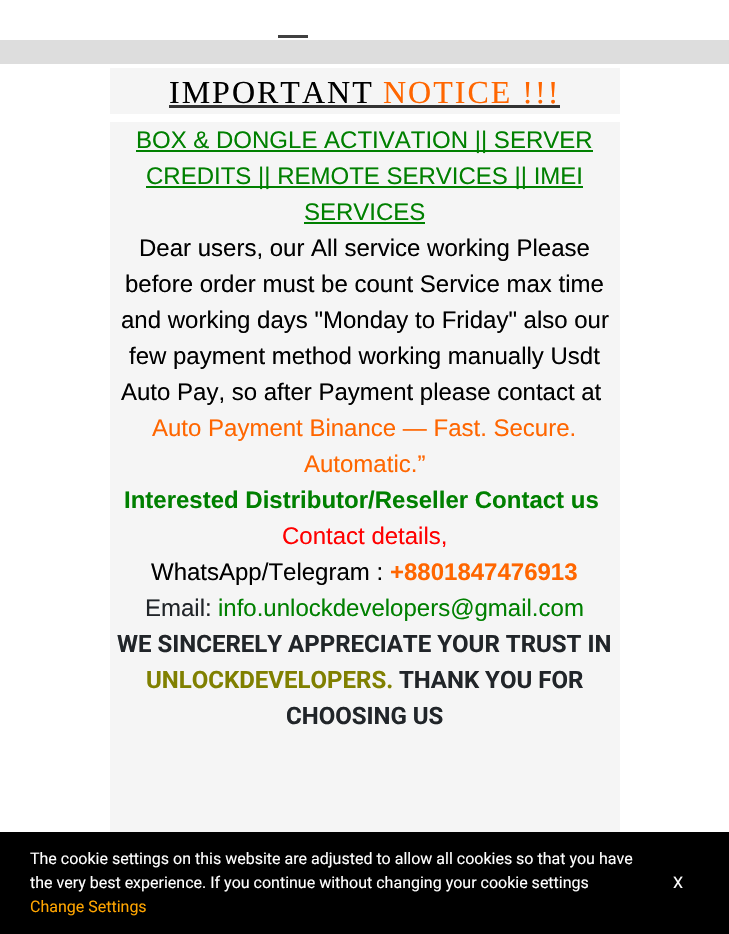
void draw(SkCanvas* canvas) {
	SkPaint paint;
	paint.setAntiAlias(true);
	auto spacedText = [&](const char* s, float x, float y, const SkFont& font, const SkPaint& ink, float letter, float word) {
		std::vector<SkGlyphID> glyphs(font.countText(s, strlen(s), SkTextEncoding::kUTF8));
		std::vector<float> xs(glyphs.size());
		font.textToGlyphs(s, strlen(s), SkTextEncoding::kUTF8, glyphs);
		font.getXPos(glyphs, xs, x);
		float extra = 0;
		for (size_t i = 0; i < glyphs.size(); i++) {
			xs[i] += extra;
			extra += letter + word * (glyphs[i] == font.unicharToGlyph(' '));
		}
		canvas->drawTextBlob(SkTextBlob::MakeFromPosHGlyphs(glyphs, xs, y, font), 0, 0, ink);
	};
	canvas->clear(0xffffffff);
	paint.setColor(0xffdddddd);
	canvas->drawRect(SkRect::MakeXYWH(0, 40, 729, 24), paint);
	paint.setColor(0xff404040);
	canvas->drawRect(SkRect::MakeXYWH(278, 35, 30, 3), paint);
	paint.setColor(0xfff5f5f5);
	canvas->drawRect(SkRect::MakeXYWH(110, 68, 510, 46), paint);
	SkFont f1(fontMgr->matchFamilyStyle("Liberation Serif", SkFontStyle::Normal()), 32);
	f1.setSubpixel(true);
	paint.setColor(0xff000000);
	spacedText("IMPORTANT", 169, 103, f1, paint, 2, 0);
	paint.setColor(0xff333333);
	canvas->drawRect(SkRect::MakeXYWH(169, 105, 391, 3), paint);
	paint.setColor(0xffff6600);
	spacedText("NOTICE !!!", 383, 103, f1, paint, 2, 0);
	paint.setColor(0xfff5f5f5);
	canvas->drawRect(SkRect::MakeXYWH(110, 122, 510, 710), paint);
	paint.setColor(0xff008000);
	canvas->drawRect(SkRect::MakeXYWH(136, 150, 457, 2), paint);
	SkFont f2(fontMgr->matchFamilyStyle("Liberation Sans", SkFontStyle::Normal()), 24);
	f2.setSubpixel(true);
	canvas->drawString("BOX & DONGLE ACTIVATION || SERVER", 136, 148, f2, paint);
	canvas->drawRect(SkRect::MakeXYWH(146, 186, 437, 2), paint);
	canvas->drawString("CREDITS || REMOTE SERVICES || IMEI", 146, 184, f2, paint);
	canvas->drawString("SERVICES", 304, 220, f2, paint);
	canvas->drawRect(SkRect::MakeXYWH(304, 222, 121, 2), paint);
	paint.setColor(0xff000000);
	canvas->drawString("Dear users, our All service working Please", 139, 256, f2, paint);
	canvas->drawString("before order must be count Service max time", 125, 292, f2, paint);
	canvas->drawString("and working days \"Monday to Friday\" also our", 121, 328, f2, paint);
	canvas->drawString("few payment method working manually Usdt", 129, 364, f2, paint);
	canvas->drawString("Auto Pay, so after Payment please contact at", 121, 400, f2, paint);
	paint.setColor(0xffff6600);
	canvas->drawString("Auto Payment Binance — Fast. Secure.", 152, 436, f2, paint);
	canvas->drawString("Automatic.”", 304, 472, f2, paint);
	SkFont f3(fontMgr->matchFamilyStyle("Liberation Sans", SkFontStyle::Bold()), 24);
	f3.setSubpixel(true);
	paint.setColor(0xff008000);
	canvas->drawString("Interested Distributor/Reseller Contact us", 124, 508, f3, paint);
	paint.setColor(0xffff0000);
	canvas->drawString("Contact details,", 282, 544, f2, paint);
	paint.setColor(0xff000000);
	canvas->drawString("WhatsApp/Telegram :", 151, 580, f2, paint);
	paint.setColor(0xffff6600);
	canvas->drawString("+8801847476913", 390, 580, f3, paint);
	paint.setColor(0xff212529);
	canvas->drawString("Email:", 145, 616, f2, paint);
	paint.setColor(0xff008000);
	canvas->drawString("info.unlockdevelopers@gmail.com", 218, 616, f2, paint);
	SkFont f4(fontMgr->matchFamilyStyle("Roboto", SkFontStyle::Bold()), 24);
	f4.setSubpixel(true);
	paint.setColor(0xff212529);
	canvas->drawString("WE SINCERELY APPRECIATE YOUR TRUST IN", 117, 652, f4, paint);
	paint.setColor(0xff808000);
	canvas->drawString("UNLOCKDEVELOPERS.", 146, 688, f4, paint);
	paint.setColor(0xff212529);
	canvas->drawString("THANK YOU FOR", 399, 688, f4, paint);
	canvas->drawString("CHOOSING US", 286, 724, f4, paint);
	paint.setColor(0xff000000);
	canvas->drawRect(SkRect::MakeXYWH(0, 832, 729, 102), paint);
	SkFont f5(fontMgr->matchFamilyStyle("Roboto", SkFontStyle::Normal()), 16);
	f5.setSubpixel(true);
	paint.setColor(0xffffffff);
	canvas->drawString("The cookie settings on this website are adjusted to allow all cookies so that you have", 30, 864, f5, paint);
	canvas->drawString("the very best experience. If you continue without changing your cookie settings", 30, 888, f5, paint);
	paint.setColor(0xffffa500);
	canvas->drawString("Change Settings", 30, 912, f5, paint);
	paint.setColor(0xffffffff);
	canvas->drawString("X", 673, 888, f5, paint);
}
